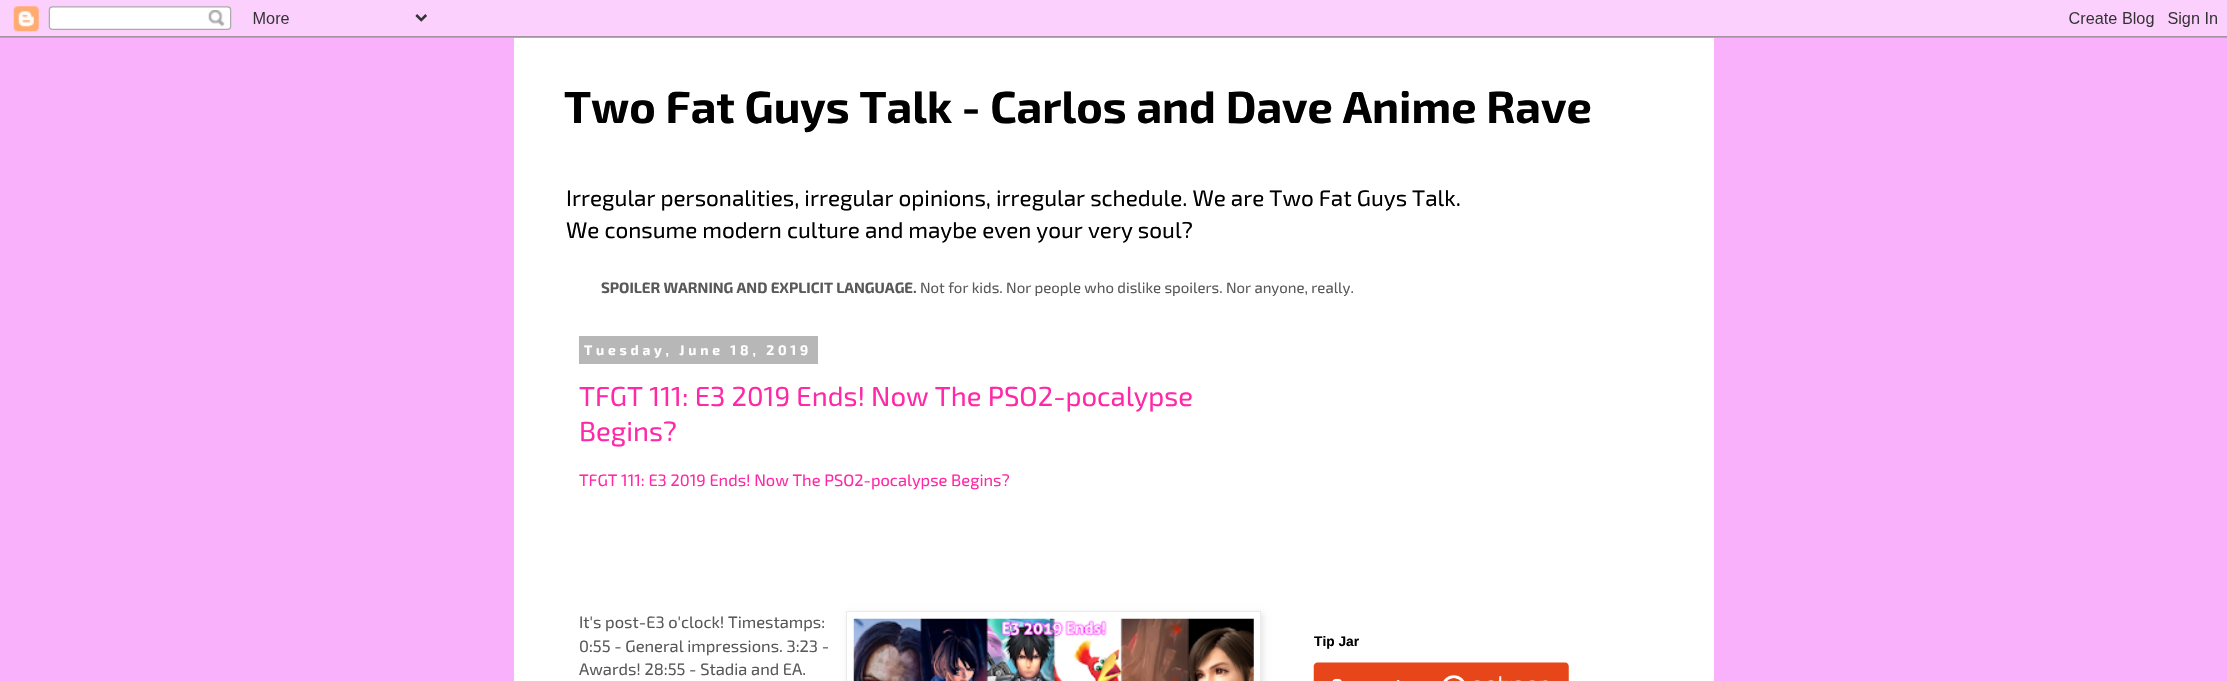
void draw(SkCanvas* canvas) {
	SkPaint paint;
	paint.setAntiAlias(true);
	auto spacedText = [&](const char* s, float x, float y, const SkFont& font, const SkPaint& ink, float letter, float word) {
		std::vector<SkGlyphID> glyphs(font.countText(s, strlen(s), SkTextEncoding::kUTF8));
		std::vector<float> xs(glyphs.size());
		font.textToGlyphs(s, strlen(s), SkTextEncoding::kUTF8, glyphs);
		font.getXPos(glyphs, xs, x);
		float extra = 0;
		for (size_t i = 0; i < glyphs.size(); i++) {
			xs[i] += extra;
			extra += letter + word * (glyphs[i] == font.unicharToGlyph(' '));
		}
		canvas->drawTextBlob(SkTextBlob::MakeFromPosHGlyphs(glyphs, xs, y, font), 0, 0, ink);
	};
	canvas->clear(0xfff9b1fb);
	canvas->drawImageRect(SkImages::DeferredFromEncodedData(SkData::MakeFromFileName("img1.png")), SkRect::MakeXYWH(0, 0, 2227, 38), SkSamplingOptions());
	paint.setColor(0xffffffff);
	canvas->drawRect(SkRect::MakeXYWH(514, 38, 1200, 643), paint);
	SkFont f1(fontMgr->matchFamilyStyle("Exo 2", SkFontStyle::Bold()), 45);
	f1.setSubpixel(true);
	paint.setColor(0xff000000);
	canvas->drawString("Two Fat Guys Talk - Carlos and Dave Anime Rave", 564, 123, f1, paint);
	SkFont f2(fontMgr->matchFamilyStyle("Exo 2", SkFontStyle::Normal()), 22.5);
	f2.setSubpixel(true);
	canvas->drawString("Irregular personalities, irregular opinions, irregular schedule. We are Two Fat Guys Talk.", 566, 206, f2, paint);
	canvas->drawString("We consume modern culture and maybe even your very soul?", 566, 238, f2, paint);
	SkFont f3(fontMgr->matchFamilyStyle("Exo 2", SkFontStyle::Bold()), 15);
	f3.setSubpixel(true);
	paint.setColor(0xff595959);
	canvas->drawString("SPOILER WARNING AND EXPLICIT LANGUAGE.", 601, 293, f3, paint);
	SkFont f4(fontMgr->matchFamilyStyle("Exo 2", SkFontStyle::Normal()), 15);
	f4.setSubpixel(true);
	canvas->drawString("Not for kids. Nor people who dislike spoilers. Nor anyone, really.", 920, 293, f4, paint);
	paint.setColor(0xffb7b7b7);
	canvas->drawRect(SkRect::MakeXYWH(579, 336, 239, 28), paint);
	SkFont f5(fontMgr->matchFamilyStyle("Exo 2", SkFontStyle::Bold()), 13.75);
	f5.setSubpixel(true);
	paint.setColor(0xffffffff);
	spacedText("Tuesday, June 18, 2019", 584, 355, f5, paint, 3.75, 0);
	SkFont f6(fontMgr->matchFamilyStyle("Exo 2", SkFontStyle::Normal()), 27.5);
	f6.setSubpixel(true);
	paint.setColor(0xffff28a7);
	canvas->drawString("TFGT 111: E3 2019 Ends! Now The PSO2-pocalypse", 579, 406, f6, paint);
	canvas->drawString("Begins?", 579, 441, f6, paint);
	SkFont f7(fontMgr->matchFamilyStyle("Exo 2", SkFontStyle::Normal()), 16.5);
	f7.setSubpixel(true);
	canvas->drawString("TFGT 111: E3 2019 Ends! Now The PSO2-pocalypse Begins?", 579, 486, f7, paint);
	paint.setColor(0xff595959);
	canvas->drawString("It's post-E3 o'clock! Timestamps:", 579, 628, f7, paint);
	paint.setColor(0x1a000000);
	paint.setMaskFilter(SkMaskFilter::MakeBlur(kNormal_SkBlurStyle, 3));
	canvas->drawRect(SkRect::MakeXYWH(848, 613, 415, 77), paint);
	paint.setMaskFilter(nullptr);
	paint.setColor(0xffffffff);
	canvas->drawRect(SkRect::MakeXYWH(846.5, 611.5, 414, 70), paint);
	paint.setStroke(true);
	paint.setStrokeWidth(1);
	paint.setColor(0xffebebeb);
	canvas->drawRect(SkRect::MakeXYWH(846.5, 611.5, 414, 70), paint);
	canvas->drawImageRect(SkImages::DeferredFromEncodedData(SkData::MakeFromFileName("img2.png")), SkRect::MakeXYWH(853, 618, 401, 63), SkSamplingOptions());
	paint.setStroke(false);
	paint.setColor(0xff595959);
	canvas->drawString("0:55 - General impressions. 3:23 -", 579, 652, f7, paint);
	canvas->drawString("Awards! 28:55 - Stadia and EA.", 579, 675, f7, paint);
	SkFont f8(fontMgr->matchFamilyStyle("Liberation Sans", SkFontStyle::Bold()), 13.75);
	f8.setSubpixel(true);
	paint.setColor(0xff000000);
	canvas->drawString("Tip Jar", 1314, 646, f8, paint);
	canvas->drawImageRect(SkImages::DeferredFromEncodedData(SkData::MakeFromFileName("img3.png")), SkRect::MakeXYWH(1313, 662, 256, 19), SkSamplingOptions());
}
